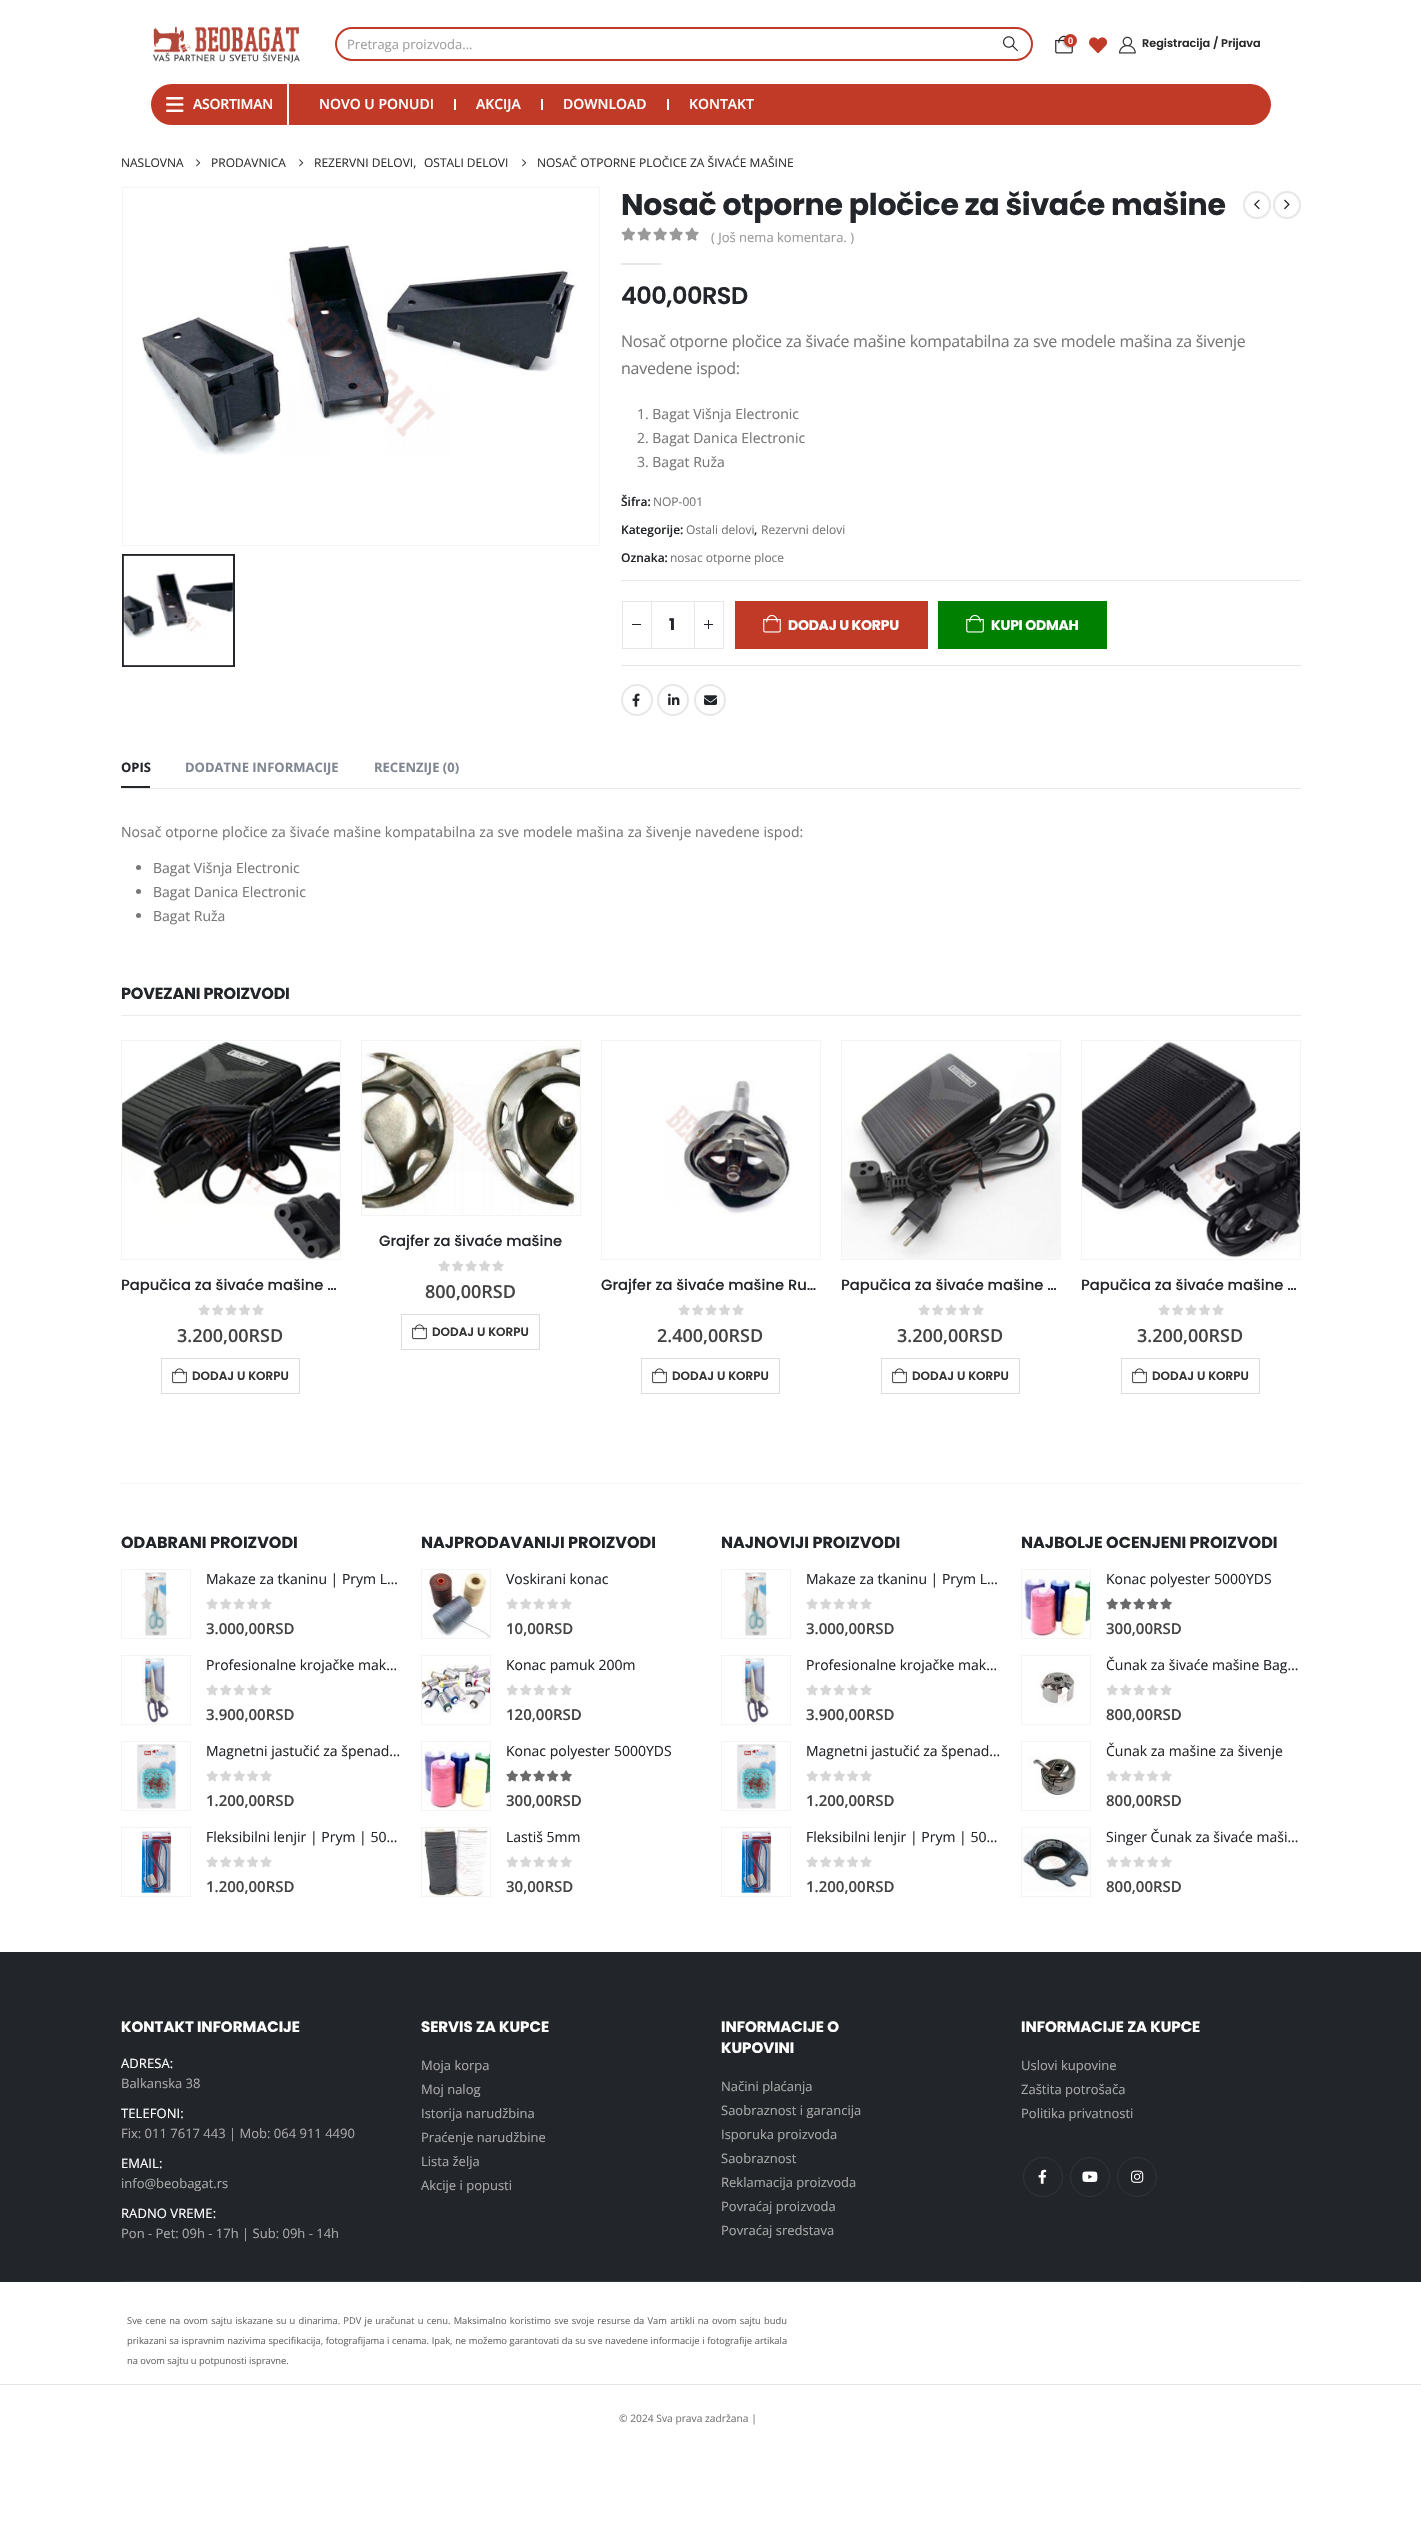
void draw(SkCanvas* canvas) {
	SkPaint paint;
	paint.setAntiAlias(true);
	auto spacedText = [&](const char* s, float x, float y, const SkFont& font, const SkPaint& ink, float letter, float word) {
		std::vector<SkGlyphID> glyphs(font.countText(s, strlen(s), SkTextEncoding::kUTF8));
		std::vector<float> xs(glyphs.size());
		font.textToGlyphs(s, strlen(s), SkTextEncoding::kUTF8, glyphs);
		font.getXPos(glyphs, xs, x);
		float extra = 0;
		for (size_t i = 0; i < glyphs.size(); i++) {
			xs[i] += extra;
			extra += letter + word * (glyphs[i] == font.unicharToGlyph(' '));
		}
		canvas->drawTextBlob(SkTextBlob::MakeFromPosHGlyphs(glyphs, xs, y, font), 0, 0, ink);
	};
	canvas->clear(0xffffffff);
	canvas->drawImageRect(SkImages::DeferredFromEncodedData(SkData::MakeFromFileName("img1.png")), SkRect::MakeXYWH(152, 26, 148, 37), SkSamplingOptions());
	paint.setStroke(true);
	paint.setStrokeWidth(2);
	paint.setColor(0xffc13a27);
	canvas->drawRoundRect(SkRect::MakeXYWH(336, 28, 696, 32), 16, 16, paint);
	SkFont f1(fontMgr->matchFamilyStyle("Open Sans", SkFontStyle::Normal()), 13);
	f1.setSubpixel(true);
	paint.setStroke(false);
	paint.setColor(0xff9f9f9f);
	canvas->drawString("Pretraga proizvoda...", 347, 49, f1, paint);
	canvas->drawImageRect(SkImages::DeferredFromEncodedData(SkData::MakeFromFileName("img2.png")), SkRect::MakeXYWH(1003, 36, 15, 16), SkSamplingOptions());
	canvas->drawImageRect(SkImages::DeferredFromEncodedData(SkData::MakeFromFileName("img3.png")), SkRect::MakeXYWH(1055, 35, 18, 19), SkSamplingOptions());
	paint.setColor(0x4d000000);
	paint.setMaskFilter(SkMaskFilter::MakeBlur(kNormal_SkBlurStyle, 1));
	canvas->drawRoundRect(SkRect::MakeXYWH(1063, 35, 13, 13), 6.5, 6.5, paint);
	paint.setMaskFilter(nullptr);
	paint.setColor(0xffc13a27);
	canvas->drawCircle(1070.5, 40.5, 6.5, paint);
	SkFont f2(fontMgr->matchFamilyStyle("Open Sans", SkFontStyle(600, SkFontStyle::kNormal_Width, SkFontStyle::kUpright_Slant)), 9);
	f2.setSubpixel(true);
	paint.setColor(0xffffffff);
	canvas->drawString("0", 1068, 44, f2, paint);
	canvas->drawImageRect(SkImages::DeferredFromEncodedData(SkData::MakeFromFileName("img4.png")), SkRect::MakeXYWH(1089, 37, 18, 17), SkSamplingOptions());
	canvas->drawImageRect(SkImages::DeferredFromEncodedData(SkData::MakeFromFileName("img5.png")), SkRect::MakeXYWH(1119, 36, 17, 18), SkSamplingOptions());
	SkFont f3(fontMgr->matchFamilyStyle("Poppins", SkFontStyle(600, SkFontStyle::kNormal_Width, SkFontStyle::kUpright_Slant)), 11.25);
	f3.setSubpixel(true);
	paint.setColor(0xff282828);
	canvas->drawString("Registracija / Prijava", 1142, 47, f3, paint);
	paint.setColor(0xffc13a27);
	canvas->drawRoundRect(SkRect::MakeXYWH(151, 84, 1120, 41), 20.5, 20.5, paint);
	paint.setColor(0xffffffff);
	canvas->drawRect(SkRect::MakeXYWH(287, 84, 2, 41), paint);
	canvas->drawImageRect(SkImages::DeferredFromEncodedData(SkData::MakeFromFileName("img6.png")), SkRect::MakeXYWH(166, 97, 18, 15), SkSamplingOptions());
	SkFont f4(fontMgr->matchFamilyStyle("Open Sans", SkFontStyle(600, SkFontStyle::kNormal_Width, SkFontStyle::kUpright_Slant)), 14);
	f4.setSubpixel(true);
	spacedText("ASORTIMAN", 193, 109, f4, paint, -0.25, 0);
	canvas->drawString("NOVO U PONUDI", 319, 109, f4, paint);
	canvas->drawRect(SkRect::MakeXYWH(454, 99, 2, 11), paint);
	canvas->drawString("AKCIJA", 476, 109, f4, paint);
	canvas->drawRect(SkRect::MakeXYWH(541, 99, 2, 11), paint);
	canvas->drawString("DOWNLOAD", 563, 109, f4, paint);
	canvas->drawRect(SkRect::MakeXYWH(667, 99, 2, 11), paint);
	canvas->drawString("KONTAKT", 689, 109, f4, paint);
	SkFont f5(fontMgr->matchFamilyStyle("Open Sans", SkFontStyle::Normal()), 12);
	f5.setSubpixel(true);
	paint.setColor(0xff333333);
	canvas->drawString("NASLOVNA", 121, 167, f5, paint);
	canvas->drawImageRect(SkImages::DeferredFromEncodedData(SkData::MakeFromFileName("img7.png")), SkRect::MakeXYWH(196, 159, 5, 8), SkSamplingOptions());
	canvas->drawString("PRODAVNICA", 211, 167, f5, paint);
	canvas->drawImageRect(SkImages::DeferredFromEncodedData(SkData::MakeFromFileName("img7.png")), SkRect::MakeXYWH(299, 159, 5, 8), SkSamplingOptions());
	canvas->drawString("REZERVNI DELOVI,", 314, 167, f5, paint);
	canvas->drawString("OSTALI DELOVI", 424, 167, f5, paint);
	canvas->drawImageRect(SkImages::DeferredFromEncodedData(SkData::MakeFromFileName("img7.png")), SkRect::MakeXYWH(522, 159, 5, 8), SkSamplingOptions());
	canvas->drawString("NOSAČ OTPORNE PLOČICE ZA ŠIVAĆE MAŠINE", 537, 167, f5, paint);
	paint.setStroke(true);
	paint.setStrokeWidth(1);
	paint.setColor(0xfff4f4f4);
	canvas->drawRect(SkRect::MakeXYWH(122.5, 187.5, 477, 358), paint);
	canvas->drawImageRect(SkImages::DeferredFromEncodedData(SkData::MakeFromFileName("img8.png")), SkRect::MakeXYWH(142, 245, 437, 210), SkSamplingOptions());
	paint.setStrokeWidth(2);
	paint.setColor(0xff222529);
	canvas->drawRect(SkRect::MakeXYWH(123, 555, 111, 111), paint);
	canvas->drawImageRect(SkImages::DeferredFromEncodedData(SkData::MakeFromFileName("img9.png")), SkRect::MakeXYWH(123, 555, 110, 111), SkSamplingOptions());
	SkFont f6(fontMgr->matchFamilyStyle("Poppins", SkFontStyle::Bold()), 30);
	f6.setSubpixel(true);
	paint.setStroke(false);
	spacedText("Nosač otporne pločice za šivaće mašine", 621, 215, f6, paint, -0.3, 0);
	paint.setStroke(true);
	paint.setColor(0xffe7e7e7);
	canvas->drawCircle(1257, 205, 13, paint);
	canvas->drawImageRect(SkImages::DeferredFromEncodedData(SkData::MakeFromFileName("img10.png")), SkRect::MakeXYWH(1254, 199, 6, 11), SkSamplingOptions());
	canvas->drawCircle(1287, 205, 13, paint);
	canvas->drawImageRect(SkImages::DeferredFromEncodedData(SkData::MakeFromFileName("img11.png")), SkRect::MakeXYWH(1284, 199, 6, 11), SkSamplingOptions());
	canvas->drawImageRect(SkImages::DeferredFromEncodedData(SkData::MakeFromFileName("img12.png")), SkRect::MakeXYWH(621, 227, 78, 14), SkSamplingOptions());
	paint.setStroke(false);
	paint.setColor(0xff999999);
	canvas->drawString("( Još nema komentara. )", 711, 242, f1, paint);
	paint.setColor(0xffe7e7e7);
	canvas->drawRect(SkRect::MakeXYWH(621, 263, 40, 2), paint);
	SkFont f7(fontMgr->matchFamilyStyle("Poppins", SkFontStyle(600, SkFontStyle::kNormal_Width, SkFontStyle::kUpright_Slant)), 24);
	f7.setSubpixel(true);
	paint.setColor(0xff222529);
	spacedText("400,00RSD", 621, 304, f7, paint, -0.5, 0);
	SkFont f8(fontMgr->matchFamilyStyle("Open Sans", SkFontStyle::Normal()), 16);
	f8.setSubpixel(true);
	paint.setColor(0xff777777);
	spacedText("Nosač otporne pločice za šivaće mašine kompatabilna za sve modele mašina za šivenje", 621, 347, f8, paint, -0.25, 0);
	spacedText("navedene ispod:", 621, 374, f8, paint, -0.25, 0);
	SkFont f9(fontMgr->matchFamilyStyle("Open Sans", SkFontStyle::Normal()), 14);
	f9.setSubpixel(true);
	canvas->drawString("1. Bagat Višnja Electronic", 637, 419, f9, paint);
	canvas->drawString("2. Bagat Danica Electronic", 637, 443, f9, paint);
	canvas->drawString("3. Bagat Ruža", 637, 467, f9, paint);
	SkFont f10(fontMgr->matchFamilyStyle("Open Sans", SkFontStyle(600, SkFontStyle::kNormal_Width, SkFontStyle::kUpright_Slant)), 12);
	f10.setSubpixel(true);
	paint.setColor(0xff222529);
	canvas->drawString("Šifra:", 621, 506, f10, paint);
	paint.setColor(0xff777777);
	canvas->drawString("NOP-001", 653, 506, f5, paint);
	paint.setColor(0xff222529);
	canvas->drawString("Kategorije:", 621, 534, f10, paint);
	paint.setColor(0xff777777);
	canvas->drawString("Ostali delovi", 686, 534, f5, paint);
	paint.setColor(0xff222529);
	canvas->drawString(",", 754, 534, f10, paint);
	paint.setColor(0xff777777);
	canvas->drawString("Rezervni delovi", 761, 534, f5, paint);
	paint.setColor(0xff222529);
	canvas->drawString("Oznaka:", 621, 562, f10, paint);
	paint.setColor(0xff777777);
	canvas->drawString("nosac otporne ploce", 670, 562, f5, paint);
	paint.setColor(0xffe7e7e7);
	canvas->drawRect(SkRect::MakeXYWH(621, 580, 680, 1), paint);
	canvas->drawRect(SkRect::MakeXYWH(621, 665, 680, 1), paint);
	canvas->drawRect(SkRect::MakeXYWH(651, 601, 44, 1), paint);
	canvas->drawRect(SkRect::MakeXYWH(651, 648, 44, 1), paint);
	paint.setStroke(true);
	paint.setStrokeWidth(1);
	canvas->drawRect(SkRect::MakeXYWH(622.5, 601.5, 29, 47), paint);
	paint.setStroke(false);
	paint.setColor(0xff222529);
	canvas->drawRect(SkRect::MakeXYWH(632, 624, 9, 1), paint);
	SkFont f11(fontMgr->matchFamilyStyle("Poppins", SkFontStyle::Bold()), 16);
	f11.setSubpixel(true);
	canvas->drawString("1", 669, 630, f11, paint);
	paint.setStroke(true);
	paint.setColor(0xffe7e7e7);
	canvas->drawRect(SkRect::MakeXYWH(694.5, 601.5, 29, 47), paint);
	paint.setStroke(false);
	paint.setColor(0xff222529);
	canvas->drawRect(SkRect::MakeXYWH(704, 624, 9, 1), paint);
	canvas->drawRect(SkRect::MakeXYWH(708, 620, 1, 9), paint);
	paint.setColor(0xffc13a27);
	canvas->drawRect(SkRect::MakeXYWH(735, 601, 193, 48), paint);
	canvas->drawImageRect(SkImages::DeferredFromEncodedData(SkData::MakeFromFileName("img13.png")), SkRect::MakeXYWH(763, 614, 18, 19), SkSamplingOptions());
	SkFont f12(fontMgr->matchFamilyStyle("Poppins", SkFontStyle::Bold()), 14);
	f12.setSubpixel(true);
	paint.setColor(0xffffffff);
	spacedText("DODAJ U KORPU", 788, 630, f12, paint, -0.25, 0);
	paint.setColor(0xff008000);
	canvas->drawRect(SkRect::MakeXYWH(938, 601, 169, 48), paint);
	canvas->drawImageRect(SkImages::DeferredFromEncodedData(SkData::MakeFromFileName("img14.png")), SkRect::MakeXYWH(966, 614, 18, 19), SkSamplingOptions());
	paint.setColor(0xffffffff);
	spacedText("KUPI ODMAH", 991, 630, f12, paint, -0.25, 0);
	paint.setStroke(true);
	paint.setStrokeWidth(2);
	paint.setColor(0xffe7e7e7);
	canvas->drawCircle(637, 700, 15, paint);
	canvas->drawImageRect(SkImages::DeferredFromEncodedData(SkData::MakeFromFileName("img15.png")), SkRect::MakeXYWH(632, 693, 8, 14), SkSamplingOptions());
	canvas->drawCircle(673, 700, 15, paint);
	canvas->drawImageRect(SkImages::DeferredFromEncodedData(SkData::MakeFromFileName("img16.png")), SkRect::MakeXYWH(668, 693, 12, 12), SkSamplingOptions());
	canvas->drawCircle(710, 700, 15, paint);
	canvas->drawImageRect(SkImages::DeferredFromEncodedData(SkData::MakeFromFileName("img17.png")), SkRect::MakeXYWH(704, 695, 13, 10), SkSamplingOptions());
	paint.setStroke(false);
	paint.setColor(0xff222529);
	canvas->drawRect(SkRect::MakeXYWH(121, 786, 29, 2), paint);
	SkFont f13(fontMgr->matchFamilyStyle("Open Sans", SkFontStyle::Bold()), 13);
	f13.setSubpixel(true);
	canvas->drawString("OPIS", 121, 772, f13, paint);
	paint.setColor(0xff818692);
	canvas->drawString("DODATNE INFORMACIJE", 185, 772, f13, paint);
	canvas->drawString("RECENZIJE (0)", 374, 772, f13, paint);
	paint.setColor(0xffe7e7e7);
	canvas->drawRect(SkRect::MakeXYWH(121, 788, 1180, 1), paint);
	paint.setColor(0xff777777);
	spacedText("Nosač otporne pločice za šivaće mašine kompatabilna za sve modele mašina za šivenje navedene ispod:", 121, 837, f9, paint, 0.07, 0);
	canvas->drawCircle(138.5, 867.5, 2.5, paint);
	canvas->drawString("Bagat Višnja Electronic", 153, 873, f9, paint);
	canvas->drawCircle(138.5, 891.5, 2.5, paint);
	canvas->drawString("Bagat Danica Electronic", 153, 897, f9, paint);
	canvas->drawCircle(138.5, 915.5, 2.5, paint);
	canvas->drawString("Bagat Ruža", 153, 921, f9, paint);
	paint.setColor(0xffebebeb);
	canvas->drawRect(SkRect::MakeXYWH(121, 1015, 1180, 1), paint);
	paint.setColor(0xff222529);
	spacedText("POVEZANI PROIZVODI", 121, 999, f11, paint, -0.2, 0);
	paint.setStroke(true);
	paint.setStrokeWidth(1);
	paint.setColor(0xfff4f4f4);
	canvas->drawRect(SkRect::MakeXYWH(121.5, 1040.5, 219, 219), paint);
	canvas->drawImageRect(SkImages::DeferredFromEncodedData(SkData::MakeFromFileName("img18.png")), SkRect::MakeXYWH(122, 1041, 218, 218), SkSamplingOptions());
	SkFont f14(fontMgr->matchFamilyStyle("Poppins", SkFontStyle(500, SkFontStyle::kNormal_Width, SkFontStyle::kUpright_Slant)), 14.75);
	f14.setSubpixel(true);
	paint.setStroke(false);
	paint.setColor(0xff222529);
	canvas->drawString("Papučica za šivaće mašine …", 121, 1290, f14, paint);
	canvas->drawImageRect(SkImages::DeferredFromEncodedData(SkData::MakeFromFileName("img19.png")), SkRect::MakeXYWH(198, 1304, 66, 12), SkSamplingOptions());
	SkFont f15(fontMgr->matchFamilyStyle("Open Sans", SkFontStyle(600, SkFontStyle::kNormal_Width, SkFontStyle::kUpright_Slant)), 18);
	f15.setSubpixel(true);
	paint.setColor(0xff444444);
	canvas->drawString("3.200,00RSD", 177, 1342, f15, paint);
	paint.setStroke(true);
	paint.setColor(0xffdddddd);
	canvas->drawRect(SkRect::MakeXYWH(161.5, 1358.5, 138, 35), paint);
	canvas->drawImageRect(SkImages::DeferredFromEncodedData(SkData::MakeFromFileName("img20.png")), SkRect::MakeXYWH(172, 1368, 15, 16), SkSamplingOptions());
	SkFont f16(fontMgr->matchFamilyStyle("Poppins", SkFontStyle(600, SkFontStyle::kNormal_Width, SkFontStyle::kUpright_Slant)), 12);
	f16.setSubpixel(true);
	paint.setStroke(false);
	paint.setColor(0xff333333);
	canvas->drawString("DODAJ U KORPU", 192, 1380, f16, paint);
	paint.setStroke(true);
	paint.setColor(0xfff4f4f4);
	canvas->drawRect(SkRect::MakeXYWH(361.5, 1040.5, 219, 175), paint);
	canvas->drawImageRect(SkImages::DeferredFromEncodedData(SkData::MakeFromFileName("img21.png")), SkRect::MakeXYWH(362, 1041, 218, 174), SkSamplingOptions());
	paint.setStroke(false);
	paint.setColor(0xff222529);
	canvas->drawString("Grajfer za šivaće mašine", 379, 1246, f14, paint);
	canvas->drawImageRect(SkImages::DeferredFromEncodedData(SkData::MakeFromFileName("img19.png")), SkRect::MakeXYWH(438, 1260, 66, 12), SkSamplingOptions());
	paint.setColor(0xff444444);
	canvas->drawString("800,00RSD", 425, 1298, f15, paint);
	paint.setStroke(true);
	paint.setColor(0xffdddddd);
	canvas->drawRect(SkRect::MakeXYWH(401.5, 1314.5, 138, 35), paint);
	canvas->drawImageRect(SkImages::DeferredFromEncodedData(SkData::MakeFromFileName("img20.png")), SkRect::MakeXYWH(412, 1324, 15, 16), SkSamplingOptions());
	paint.setStroke(false);
	paint.setColor(0xff333333);
	canvas->drawString("DODAJ U KORPU", 432, 1336, f16, paint);
	paint.setStroke(true);
	paint.setColor(0xfff4f4f4);
	canvas->drawRect(SkRect::MakeXYWH(601.5, 1040.5, 219, 219), paint);
	canvas->drawImageRect(SkImages::DeferredFromEncodedData(SkData::MakeFromFileName("img22.png")), SkRect::MakeXYWH(665, 1080, 129, 135), SkSamplingOptions());
	paint.setStroke(false);
	paint.setColor(0xff222529);
	canvas->drawString("Grajfer za šivaće mašine Ru…", 601, 1290, f14, paint);
	canvas->drawImageRect(SkImages::DeferredFromEncodedData(SkData::MakeFromFileName("img19.png")), SkRect::MakeXYWH(678, 1304, 66, 12), SkSamplingOptions());
	paint.setColor(0xff444444);
	canvas->drawString("2.400,00RSD", 657, 1342, f15, paint);
	paint.setStroke(true);
	paint.setColor(0xffdddddd);
	canvas->drawRect(SkRect::MakeXYWH(641.5, 1358.5, 138, 35), paint);
	canvas->drawImageRect(SkImages::DeferredFromEncodedData(SkData::MakeFromFileName("img20.png")), SkRect::MakeXYWH(652, 1368, 15, 16), SkSamplingOptions());
	paint.setStroke(false);
	paint.setColor(0xff333333);
	canvas->drawString("DODAJ U KORPU", 672, 1380, f16, paint);
	paint.setStroke(true);
	paint.setColor(0xfff4f4f4);
	canvas->drawRect(SkRect::MakeXYWH(841.5, 1040.5, 219, 219), paint);
	canvas->drawImageRect(SkImages::DeferredFromEncodedData(SkData::MakeFromFileName("img23.png")), SkRect::MakeXYWH(842, 1052, 218, 207), SkSamplingOptions());
	paint.setStroke(false);
	paint.setColor(0xff222529);
	canvas->drawString("Papučica za šivaće mašine …", 841, 1290, f14, paint);
	canvas->drawImageRect(SkImages::DeferredFromEncodedData(SkData::MakeFromFileName("img19.png")), SkRect::MakeXYWH(918, 1304, 66, 12), SkSamplingOptions());
	paint.setColor(0xff444444);
	canvas->drawString("3.200,00RSD", 897, 1342, f15, paint);
	paint.setStroke(true);
	paint.setColor(0xffdddddd);
	canvas->drawRect(SkRect::MakeXYWH(881.5, 1358.5, 138, 35), paint);
	canvas->drawImageRect(SkImages::DeferredFromEncodedData(SkData::MakeFromFileName("img20.png")), SkRect::MakeXYWH(892, 1368, 15, 16), SkSamplingOptions());
	paint.setStroke(false);
	paint.setColor(0xff333333);
	canvas->drawString("DODAJ U KORPU", 912, 1380, f16, paint);
	paint.setStroke(true);
	paint.setColor(0xfff4f4f4);
	canvas->drawRect(SkRect::MakeXYWH(1081.5, 1040.5, 219, 219), paint);
	canvas->drawImageRect(SkImages::DeferredFromEncodedData(SkData::MakeFromFileName("img24.png")), SkRect::MakeXYWH(1082, 1041, 218, 217), SkSamplingOptions());
	paint.setStroke(false);
	paint.setColor(0xff222529);
	canvas->drawString("Papučica za šivaće mašine …", 1081, 1290, f14, paint);
	canvas->drawImageRect(SkImages::DeferredFromEncodedData(SkData::MakeFromFileName("img19.png")), SkRect::MakeXYWH(1158, 1304, 66, 12), SkSamplingOptions());
	paint.setColor(0xff444444);
	canvas->drawString("3.200,00RSD", 1137, 1342, f15, paint);
	paint.setStroke(true);
	paint.setColor(0xffdddddd);
	canvas->drawRect(SkRect::MakeXYWH(1121.5, 1358.5, 138, 35), paint);
	canvas->drawImageRect(SkImages::DeferredFromEncodedData(SkData::MakeFromFileName("img20.png")), SkRect::MakeXYWH(1132, 1368, 15, 16), SkSamplingOptions());
	paint.setStroke(false);
	paint.setColor(0xff333333);
	canvas->drawString("DODAJ U KORPU", 1152, 1380, f16, paint);
	paint.setColor(0xfff5f5f5);
	canvas->drawRect(SkRect::MakeXYWH(121, 1483, 1180, 1), paint);
	paint.setColor(0xff222529);
	canvas->drawString("ODABRANI PROIZVODI", 121, 1548, f11, paint);
	paint.setStroke(true);
	paint.setColor(0xfff4f4f4);
	canvas->drawRect(SkRect::MakeXYWH(121.5, 1569.5, 69, 69), paint);
	canvas->drawImageRect(SkImages::DeferredFromEncodedData(SkData::MakeFromFileName("img25.png")), SkRect::MakeXYWH(142, 1570, 29, 66), SkSamplingOptions());
	paint.setStroke(false);
	paint.setColor(0xff222529);
	canvas->drawString("Makaze za tkaninu | Prym L…", 206, 1584, f9, paint);
	canvas->drawImageRect(SkImages::DeferredFromEncodedData(SkData::MakeFromFileName("img19.png")), SkRect::MakeXYWH(206, 1598, 66, 12), SkSamplingOptions());
	SkFont f17(fontMgr->matchFamilyStyle("Open Sans", SkFontStyle(600, SkFontStyle::kNormal_Width, SkFontStyle::kUpright_Slant)), 15);
	f17.setSubpixel(true);
	paint.setColor(0xff444444);
	canvas->drawString("3.000,00RSD", 206, 1634, f17, paint);
	paint.setStroke(true);
	paint.setColor(0xfff4f4f4);
	canvas->drawRect(SkRect::MakeXYWH(121.5, 1655.5, 69, 69), paint);
	canvas->drawImageRect(SkImages::DeferredFromEncodedData(SkData::MakeFromFileName("img26.png")), SkRect::MakeXYWH(141, 1656, 30, 68), SkSamplingOptions());
	paint.setStroke(false);
	paint.setColor(0xff222529);
	canvas->drawString("Profesionalne krojačke mak…", 206, 1670, f9, paint);
	canvas->drawImageRect(SkImages::DeferredFromEncodedData(SkData::MakeFromFileName("img19.png")), SkRect::MakeXYWH(206, 1684, 66, 12), SkSamplingOptions());
	paint.setColor(0xff444444);
	canvas->drawString("3.900,00RSD", 206, 1720, f17, paint);
	paint.setStroke(true);
	paint.setColor(0xfff4f4f4);
	canvas->drawRect(SkRect::MakeXYWH(121.5, 1741.5, 69, 69), paint);
	canvas->drawImageRect(SkImages::DeferredFromEncodedData(SkData::MakeFromFileName("img27.png")), SkRect::MakeXYWH(136, 1744, 43, 65), SkSamplingOptions());
	paint.setStroke(false);
	paint.setColor(0xff222529);
	canvas->drawString("Magnetni jastučić za špenad…", 206, 1756, f9, paint);
	canvas->drawImageRect(SkImages::DeferredFromEncodedData(SkData::MakeFromFileName("img19.png")), SkRect::MakeXYWH(206, 1770, 66, 12), SkSamplingOptions());
	paint.setColor(0xff444444);
	canvas->drawString("1.200,00RSD", 206, 1806, f17, paint);
	paint.setStroke(true);
	paint.setColor(0xfff4f4f4);
	canvas->drawRect(SkRect::MakeXYWH(121.5, 1827.5, 69, 69), paint);
	canvas->drawImageRect(SkImages::DeferredFromEncodedData(SkData::MakeFromFileName("img28.png")), SkRect::MakeXYWH(141, 1831, 30, 62), SkSamplingOptions());
	paint.setStroke(false);
	paint.setColor(0xff222529);
	canvas->drawString("Fleksibilni lenjir | Prym | 50…", 206, 1842, f9, paint);
	canvas->drawImageRect(SkImages::DeferredFromEncodedData(SkData::MakeFromFileName("img19.png")), SkRect::MakeXYWH(206, 1856, 66, 12), SkSamplingOptions());
	paint.setColor(0xff444444);
	canvas->drawString("1.200,00RSD", 206, 1892, f17, paint);
	paint.setColor(0xff222529);
	canvas->drawString("NAJPRODAVANIJI PROIZVODI", 421, 1548, f11, paint);
	paint.setStroke(true);
	paint.setColor(0xfff4f4f4);
	canvas->drawRect(SkRect::MakeXYWH(421.5, 1569.5, 69, 69), paint);
	canvas->drawImageRect(SkImages::DeferredFromEncodedData(SkData::MakeFromFileName("img29.png")), SkRect::MakeXYWH(428, 1570, 62, 68), SkSamplingOptions());
	paint.setStroke(false);
	paint.setColor(0xff222529);
	canvas->drawString("Voskirani konac", 506, 1584, f9, paint);
	canvas->drawImageRect(SkImages::DeferredFromEncodedData(SkData::MakeFromFileName("img19.png")), SkRect::MakeXYWH(506, 1598, 66, 12), SkSamplingOptions());
	paint.setColor(0xff444444);
	canvas->drawString("10,00RSD", 506, 1634, f17, paint);
	paint.setStroke(true);
	paint.setColor(0xfff4f4f4);
	canvas->drawRect(SkRect::MakeXYWH(421.5, 1655.5, 69, 69), paint);
	canvas->drawImageRect(SkImages::DeferredFromEncodedData(SkData::MakeFromFileName("img30.png")), SkRect::MakeXYWH(422, 1663, 68, 51), SkSamplingOptions());
	paint.setStroke(false);
	paint.setColor(0xff222529);
	canvas->drawString("Konac pamuk 200m", 506, 1670, f9, paint);
	canvas->drawImageRect(SkImages::DeferredFromEncodedData(SkData::MakeFromFileName("img19.png")), SkRect::MakeXYWH(506, 1684, 66, 12), SkSamplingOptions());
	paint.setColor(0xff444444);
	canvas->drawString("120,00RSD", 506, 1720, f17, paint);
	paint.setStroke(true);
	paint.setColor(0xfff4f4f4);
	canvas->drawRect(SkRect::MakeXYWH(421.5, 1741.5, 69, 69), paint);
	canvas->drawImageRect(SkImages::DeferredFromEncodedData(SkData::MakeFromFileName("img31.png")), SkRect::MakeXYWH(422, 1742, 68, 68), SkSamplingOptions());
	paint.setStroke(false);
	paint.setColor(0xff222529);
	canvas->drawString("Konac polyester 5000YDS", 506, 1756, f9, paint);
	canvas->drawImageRect(SkImages::DeferredFromEncodedData(SkData::MakeFromFileName("img19.png")), SkRect::MakeXYWH(506, 1770, 66, 12), SkSamplingOptions());
	canvas->drawImageRect(SkImages::DeferredFromEncodedData(SkData::MakeFromFileName("img32.png")), SkRect::MakeXYWH(506, 1770, 66, 12), SkSamplingOptions());
	paint.setColor(0xff444444);
	canvas->drawString("300,00RSD", 506, 1806, f17, paint);
	paint.setStroke(true);
	paint.setColor(0xfff4f4f4);
	canvas->drawRect(SkRect::MakeXYWH(421.5, 1827.5, 69, 69), paint);
	canvas->drawImageRect(SkImages::DeferredFromEncodedData(SkData::MakeFromFileName("img33.png")), SkRect::MakeXYWH(422, 1828, 66, 68), SkSamplingOptions());
	paint.setStroke(false);
	paint.setColor(0xff222529);
	canvas->drawString("Lastiš 5mm", 506, 1842, f9, paint);
	canvas->drawImageRect(SkImages::DeferredFromEncodedData(SkData::MakeFromFileName("img19.png")), SkRect::MakeXYWH(506, 1856, 66, 12), SkSamplingOptions());
	paint.setColor(0xff444444);
	canvas->drawString("30,00RSD", 506, 1892, f17, paint);
	paint.setColor(0xff222529);
	canvas->drawString("NAJNOVIJI PROIZVODI", 721, 1548, f11, paint);
	paint.setStroke(true);
	paint.setColor(0xfff4f4f4);
	canvas->drawRect(SkRect::MakeXYWH(721.5, 1569.5, 69, 69), paint);
	canvas->drawImageRect(SkImages::DeferredFromEncodedData(SkData::MakeFromFileName("img25.png")), SkRect::MakeXYWH(742, 1570, 29, 66), SkSamplingOptions());
	paint.setStroke(false);
	paint.setColor(0xff222529);
	canvas->drawString("Makaze za tkaninu | Prym L…", 806, 1584, f9, paint);
	canvas->drawImageRect(SkImages::DeferredFromEncodedData(SkData::MakeFromFileName("img19.png")), SkRect::MakeXYWH(806, 1598, 66, 12), SkSamplingOptions());
	paint.setColor(0xff444444);
	canvas->drawString("3.000,00RSD", 806, 1634, f17, paint);
	paint.setStroke(true);
	paint.setColor(0xfff4f4f4);
	canvas->drawRect(SkRect::MakeXYWH(721.5, 1655.5, 69, 69), paint);
	canvas->drawImageRect(SkImages::DeferredFromEncodedData(SkData::MakeFromFileName("img26.png")), SkRect::MakeXYWH(741, 1656, 30, 68), SkSamplingOptions());
	paint.setStroke(false);
	paint.setColor(0xff222529);
	canvas->drawString("Profesionalne krojačke mak…", 806, 1670, f9, paint);
	canvas->drawImageRect(SkImages::DeferredFromEncodedData(SkData::MakeFromFileName("img19.png")), SkRect::MakeXYWH(806, 1684, 66, 12), SkSamplingOptions());
	paint.setColor(0xff444444);
	canvas->drawString("3.900,00RSD", 806, 1720, f17, paint);
	paint.setStroke(true);
	paint.setColor(0xfff4f4f4);
	canvas->drawRect(SkRect::MakeXYWH(721.5, 1741.5, 69, 69), paint);
	canvas->drawImageRect(SkImages::DeferredFromEncodedData(SkData::MakeFromFileName("img27.png")), SkRect::MakeXYWH(736, 1744, 43, 65), SkSamplingOptions());
	paint.setStroke(false);
	paint.setColor(0xff222529);
	canvas->drawString("Magnetni jastučić za špenad…", 806, 1756, f9, paint);
	canvas->drawImageRect(SkImages::DeferredFromEncodedData(SkData::MakeFromFileName("img19.png")), SkRect::MakeXYWH(806, 1770, 66, 12), SkSamplingOptions());
	paint.setColor(0xff444444);
	canvas->drawString("1.200,00RSD", 806, 1806, f17, paint);
	paint.setStroke(true);
	paint.setColor(0xfff4f4f4);
	canvas->drawRect(SkRect::MakeXYWH(721.5, 1827.5, 69, 69), paint);
	canvas->drawImageRect(SkImages::DeferredFromEncodedData(SkData::MakeFromFileName("img28.png")), SkRect::MakeXYWH(741, 1831, 30, 62), SkSamplingOptions());
	paint.setStroke(false);
	paint.setColor(0xff222529);
	canvas->drawString("Fleksibilni lenjir | Prym | 50…", 806, 1842, f9, paint);
	canvas->drawImageRect(SkImages::DeferredFromEncodedData(SkData::MakeFromFileName("img19.png")), SkRect::MakeXYWH(806, 1856, 66, 12), SkSamplingOptions());
	paint.setColor(0xff444444);
	canvas->drawString("1.200,00RSD", 806, 1892, f17, paint);
	paint.setColor(0xff222529);
	canvas->drawString("NAJBOLJE OCENJENI PROIZVODI", 1021, 1548, f11, paint);
	paint.setStroke(true);
	paint.setColor(0xfff4f4f4);
	canvas->drawRect(SkRect::MakeXYWH(1021.5, 1569.5, 69, 69), paint);
	canvas->drawImageRect(SkImages::DeferredFromEncodedData(SkData::MakeFromFileName("img31.png")), SkRect::MakeXYWH(1022, 1570, 68, 68), SkSamplingOptions());
	paint.setStroke(false);
	paint.setColor(0xff222529);
	canvas->drawString("Konac polyester 5000YDS", 1106, 1584, f9, paint);
	canvas->drawImageRect(SkImages::DeferredFromEncodedData(SkData::MakeFromFileName("img19.png")), SkRect::MakeXYWH(1106, 1598, 66, 12), SkSamplingOptions());
	canvas->drawImageRect(SkImages::DeferredFromEncodedData(SkData::MakeFromFileName("img32.png")), SkRect::MakeXYWH(1106, 1598, 66, 12), SkSamplingOptions());
	paint.setColor(0xff444444);
	canvas->drawString("300,00RSD", 1106, 1634, f17, paint);
	paint.setStroke(true);
	paint.setColor(0xfff4f4f4);
	canvas->drawRect(SkRect::MakeXYWH(1021.5, 1655.5, 69, 69), paint);
	canvas->drawImageRect(SkImages::DeferredFromEncodedData(SkData::MakeFromFileName("img34.png")), SkRect::MakeXYWH(1036, 1670, 41, 37), SkSamplingOptions());
	paint.setStroke(false);
	paint.setColor(0xff222529);
	canvas->drawString("Čunak za šivaće mašine Bag…", 1106, 1670, f9, paint);
	canvas->drawImageRect(SkImages::DeferredFromEncodedData(SkData::MakeFromFileName("img19.png")), SkRect::MakeXYWH(1106, 1684, 66, 12), SkSamplingOptions());
	paint.setColor(0xff444444);
	canvas->drawString("800,00RSD", 1106, 1720, f17, paint);
	paint.setStroke(true);
	paint.setColor(0xfff4f4f4);
	canvas->drawRect(SkRect::MakeXYWH(1021.5, 1741.5, 69, 69), paint);
	canvas->drawImageRect(SkImages::DeferredFromEncodedData(SkData::MakeFromFileName("img35.png")), SkRect::MakeXYWH(1028, 1755, 51, 44), SkSamplingOptions());
	paint.setStroke(false);
	paint.setColor(0xff222529);
	canvas->drawString("Čunak za mašine za šivenje", 1106, 1756, f9, paint);
	canvas->drawImageRect(SkImages::DeferredFromEncodedData(SkData::MakeFromFileName("img19.png")), SkRect::MakeXYWH(1106, 1770, 66, 12), SkSamplingOptions());
	paint.setColor(0xff444444);
	canvas->drawString("800,00RSD", 1106, 1806, f17, paint);
	paint.setStroke(true);
	paint.setColor(0xfff4f4f4);
	canvas->drawRect(SkRect::MakeXYWH(1021.5, 1827.5, 69, 69), paint);
	canvas->drawImageRect(SkImages::DeferredFromEncodedData(SkData::MakeFromFileName("img36.png")), SkRect::MakeXYWH(1022, 1834, 68, 58), SkSamplingOptions());
	paint.setStroke(false);
	paint.setColor(0xff222529);
	canvas->drawString("Singer Čunak za šivaće maši…", 1106, 1842, f9, paint);
	canvas->drawImageRect(SkImages::DeferredFromEncodedData(SkData::MakeFromFileName("img19.png")), SkRect::MakeXYWH(1106, 1856, 66, 12), SkSamplingOptions());
	paint.setColor(0xff444444);
	canvas->drawString("800,00RSD", 1106, 1892, f17, paint);
	paint.setColor(0xff222529);
	canvas->drawRect(SkRect::MakeXYWH(0, 1952, 1421, 330), paint);
	SkFont f18(fontMgr->matchFamilyStyle("Poppins", SkFontStyle::Bold()), 15);
	f18.setSubpixel(true);
	paint.setColor(0xffffffff);
	canvas->drawString("KONTAKT INFORMACIJE", 121, 2032, f18, paint);
	spacedText("ADRESA:", 121, 2068, f1, paint, 0.07, 0);
	paint.setColor(0xffa8a8a8);
	canvas->drawString("Balkanska 38", 121, 2088, f1, paint);
	paint.setColor(0xffffffff);
	spacedText("TELEFONI:", 121, 2118, f1, paint, 0.07, 0);
	paint.setColor(0xffa8a8a8);
	canvas->drawString("Fix: 011 7617 443 | Mob: 064 911 4490", 121, 2138, f1, paint);
	paint.setColor(0xffffffff);
	spacedText("EMAIL:", 121, 2168, f1, paint, 0.07, 0);
	paint.setColor(0xffa8a8a8);
	canvas->drawString("info@beobagat.rs", 121, 2188, f1, paint);
	paint.setColor(0xffffffff);
	spacedText("RADNO VREME:", 121, 2218, f1, paint, 0.07, 0);
	paint.setColor(0xffa8a8a8);
	canvas->drawString("Pon - Pet: 09h - 17h | Sub: 09h - 14h", 121, 2238, f1, paint);
	paint.setColor(0xffffffff);
	canvas->drawString("SERVIS ZA KUPCE", 421, 2032, f18, paint);
	paint.setColor(0xffa8a8a8);
	canvas->drawString("Moja korpa", 421, 2070, f1, paint);
	canvas->drawString("Moj nalog", 421, 2094, f1, paint);
	canvas->drawString("Istorija narudžbina", 421, 2118, f1, paint);
	canvas->drawString("Praćenje narudžbine", 421, 2142, f1, paint);
	canvas->drawString("Lista želja", 421, 2166, f1, paint);
	canvas->drawString("Akcije i popusti", 421, 2190, f1, paint);
	paint.setColor(0xffffffff);
	canvas->drawString("INFORMACIJE O", 721, 2032, f18, paint);
	canvas->drawString("KUPOVINI", 721, 2053, f18, paint);
	paint.setColor(0xffa8a8a8);
	canvas->drawString("Načini plaćanja", 721, 2091, f1, paint);
	canvas->drawString("Saobraznost i garancija", 721, 2115, f1, paint);
	canvas->drawString("Isporuka proizvoda", 721, 2139, f1, paint);
	canvas->drawString("Saobraznost", 721, 2163, f1, paint);
	canvas->drawString("Reklamacija proizvoda", 721, 2187, f1, paint);
	canvas->drawString("Povraćaj proizvoda", 721, 2211, f1, paint);
	canvas->drawString("Povraćaj sredstava", 721, 2235, f1, paint);
	paint.setColor(0xffffffff);
	canvas->drawString("INFORMACIJE ZA KUPCE", 1021, 2032, f18, paint);
	paint.setColor(0xffa8a8a8);
	canvas->drawString("Uslovi kupovine", 1021, 2070, f1, paint);
	canvas->drawString("Zaštita potrošača", 1021, 2094, f1, paint);
	canvas->drawString("Politika privatnosti", 1021, 2118, f1, paint);
	paint.setStroke(true);
	paint.setColor(0xff313438);
	canvas->drawCircle(1043, 2177, 19.5, paint);
	canvas->drawImageRect(SkImages::DeferredFromEncodedData(SkData::MakeFromFileName("img37.png")), SkRect::MakeXYWH(1038, 2169, 9, 15), SkSamplingOptions());
	canvas->drawCircle(1090, 2177, 19.5, paint);
	canvas->drawImageRect(SkImages::DeferredFromEncodedData(SkData::MakeFromFileName("img38.png")), SkRect::MakeXYWH(1082, 2171, 16, 11), SkSamplingOptions());
	canvas->drawCircle(1137, 2177, 19.5, paint);
	canvas->drawImageRect(SkImages::DeferredFromEncodedData(SkData::MakeFromFileName("img39.png")), SkRect::MakeXYWH(1131, 2170, 13, 13), SkSamplingOptions());
	paint.setStroke(false);
	canvas->drawRect(SkRect::MakeXYWH(121, 2281, 1180, 1), paint);
	SkFont f19(fontMgr->matchFamilyStyle("Open Sans", SkFontStyle::Normal()), 9.35);
	f19.setSubpixel(true);
	paint.setColor(0xff666666);
	spacedText("Sve cene na ovom sajtu iskazane su u dinarima. PDV je uračunat u cenu. Maksimalno koristimo sve svoje resurse da Vam artikli na ovom sajtu budu", 127, 2324, f19, paint, 0, 0.8);
	spacedText("prikazani sa ispravnim nazivima specifikacija, fotografijama i cenama. Ipak, ne možemo garantovati da su sve navedene informacije i fotografije artikala", 127, 2344, f19, paint, 0, 0.2);
	canvas->drawString("na ovom sajtu u potpunosti ispravne.", 127, 2364, f19, paint);
	paint.setColor(0xffe6e6e6);
	canvas->drawRect(SkRect::MakeXYWH(0, 2384, 1421, 1), paint);
	SkFont f20(fontMgr->matchFamilyStyle("Open Sans", SkFontStyle::Normal()), 10.25);
	f20.setSubpixel(true);
	paint.setColor(0xff777777);
	canvas->drawString("© 2024 Sva prava zadržana |", 619, 2422, f20, paint);
}
